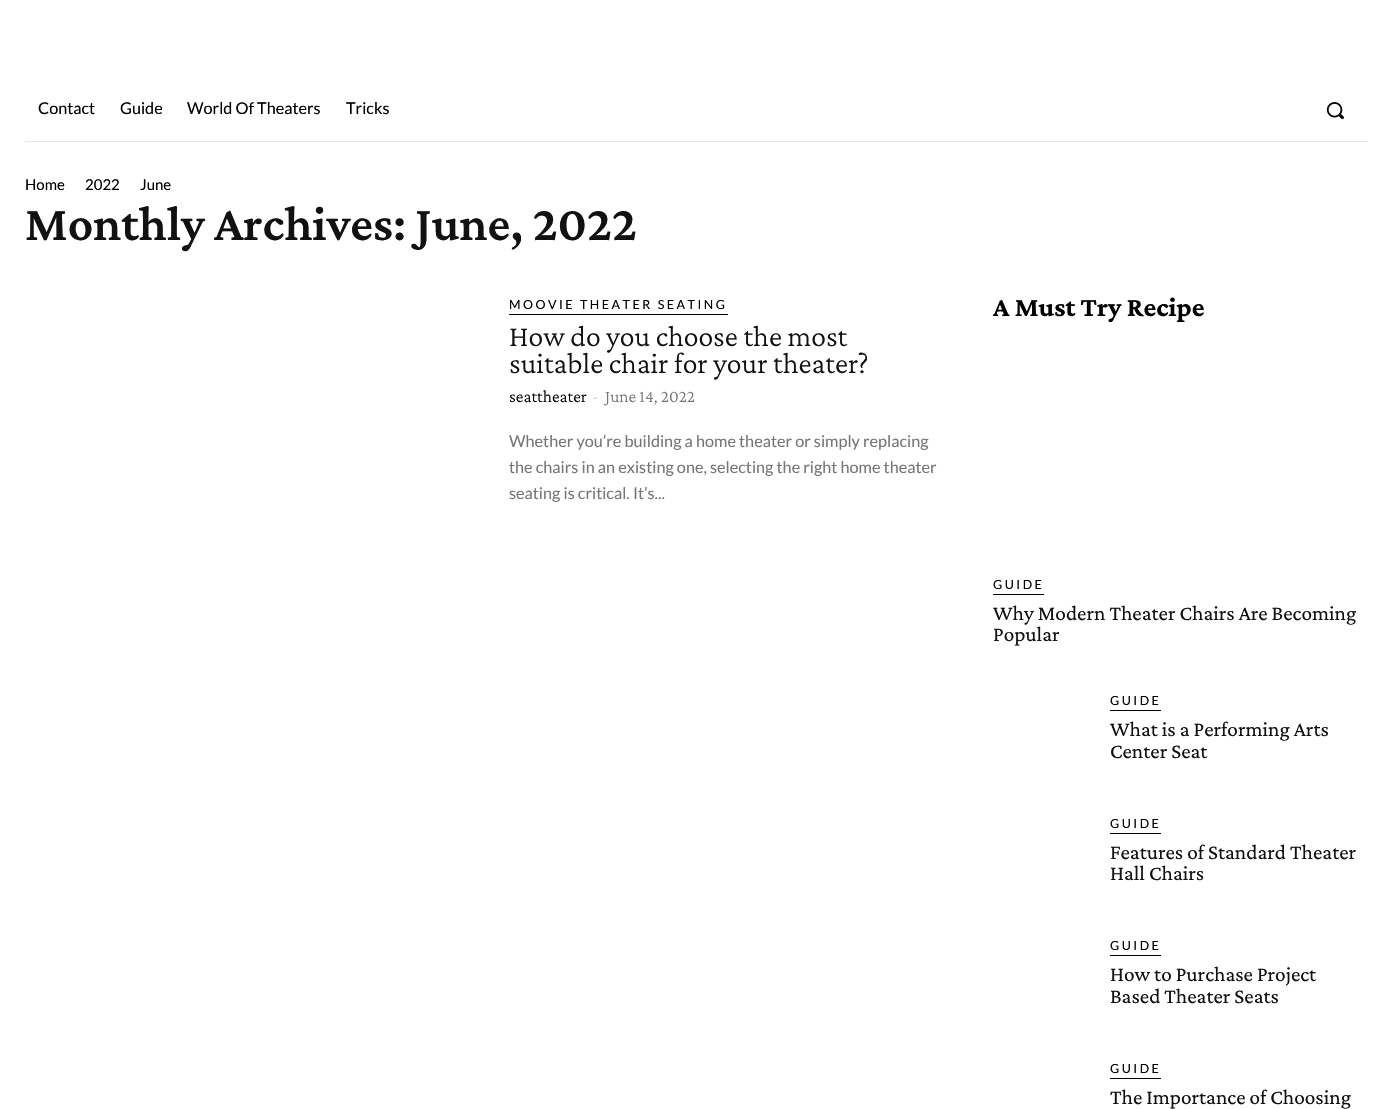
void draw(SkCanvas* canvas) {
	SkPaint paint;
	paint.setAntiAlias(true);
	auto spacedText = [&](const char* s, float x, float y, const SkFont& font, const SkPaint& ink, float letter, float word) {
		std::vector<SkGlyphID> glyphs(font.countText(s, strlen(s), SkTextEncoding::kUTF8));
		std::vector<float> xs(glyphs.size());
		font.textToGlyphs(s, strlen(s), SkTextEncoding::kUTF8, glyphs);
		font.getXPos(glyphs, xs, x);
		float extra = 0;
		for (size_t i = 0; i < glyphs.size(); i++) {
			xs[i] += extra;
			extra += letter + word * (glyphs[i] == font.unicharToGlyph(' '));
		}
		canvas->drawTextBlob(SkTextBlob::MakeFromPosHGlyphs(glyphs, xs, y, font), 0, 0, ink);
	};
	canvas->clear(0xffffffff);
	SkFont f1(fontMgr->matchFamilyStyle("Lato", SkFontStyle::Normal()), 16.25);
	f1.setSubpixel(true);
	paint.setColor(0xff000000);
	canvas->drawString("Contact", 38, 114, f1, paint);
	canvas->drawString("Guide", 120, 114, f1, paint);
	canvas->drawString("World Of Theaters", 187, 114, f1, paint);
	canvas->drawString("Tricks", 346, 114, f1, paint);
	canvas->drawImageRect(SkImages::DeferredFromEncodedData(SkData::MakeFromFileName("img1.png")), SkRect::MakeXYWH(1326, 102, 18, 18), SkSamplingOptions());
	paint.setColor(0xffe5e5e5);
	canvas->drawRect(SkRect::MakeXYWH(25, 141, 1343, 1), paint);
	SkFont f2(fontMgr->matchFamilyStyle("Lato", SkFontStyle::Normal()), 15);
	f2.setSubpixel(true);
	paint.setColor(0xff000000);
	canvas->drawString("Home", 25, 190, f2, paint);
	canvas->drawString("2022", 85, 190, f2, paint);
	canvas->drawString("June", 140, 190, f2, paint);
	SkFont f3(fontMgr->matchFamilyStyle("Crimson Pro", SkFontStyle(600, SkFontStyle::kNormal_Width, SkFontStyle::kUpright_Slant)), 50);
	f3.setSubpixel(true);
	paint.setColor(0xff111111);
	canvas->drawString("Monthly Archives: June, 2022", 25, 240, f3, paint);
	paint.setColor(0xff000000);
	canvas->drawRect(SkRect::MakeXYWH(509, 314, 219, 1), paint);
	SkFont f4(fontMgr->matchFamilyStyle("Lato", SkFontStyle::Normal()), 12.5);
	f4.setSubpixel(true);
	spacedText("MOOVIE THEATER SEATING", 509, 309, f4, paint, 2.5, 0);
	SkFont f5(fontMgr->matchFamilyStyle("Crimson Pro", SkFontStyle(300, SkFontStyle::kNormal_Width, SkFontStyle::kUpright_Slant)), 30);
	f5.setSubpixel(true);
	paint.setColor(0xff111111);
	canvas->drawString("How do you choose the most", 509, 346, f5, paint);
	canvas->drawString("suitable chair for your theater?", 509, 373, f5, paint);
	SkFont f6(fontMgr->matchFamilyStyle("Crimson Pro", SkFontStyle(300, SkFontStyle::kNormal_Width, SkFontStyle::kUpright_Slant)), 17.5);
	f6.setSubpixel(true);
	paint.setColor(0xff000000);
	canvas->drawString("seattheater", 509, 402, f6, paint);
	SkFont f7(fontMgr->matchFamilyStyle("Crimson Pro", SkFontStyle::Normal()), 17.5);
	f7.setSubpixel(true);
	paint.setColor(0xffcccccc);
	canvas->drawString("-", 592, 402, f7, paint);
	paint.setColor(0xff767676);
	canvas->drawString("June 14, 2022", 605, 402, f6, paint);
	canvas->drawString("Whether you’re building a home theater or simply replacing", 509, 447, f1, paint);
	canvas->drawString("the chairs in an existing one, selecting the right home theater", 509, 473, f1, paint);
	canvas->drawString("seating is critical. It’s...", 509, 499, f1, paint);
	SkFont f8(fontMgr->matchFamilyStyle("Crimson Pro", SkFontStyle::Bold()), 27.5);
	f8.setSubpixel(true);
	paint.setColor(0xff000000);
	canvas->drawString("A Must Try Recipe", 993, 316, f8, paint);
	canvas->drawRect(SkRect::MakeXYWH(993, 594, 51, 1), paint);
	spacedText("GUIDE", 993, 589, f4, paint, 2.5, 0);
	SkFont f9(fontMgr->matchFamilyStyle("Crimson Pro", SkFontStyle::Normal()), 21.25);
	f9.setSubpixel(true);
	paint.setColor(0xff111111);
	canvas->drawString("Why Modern Theater Chairs Are Becoming", 993, 620, f9, paint);
	canvas->drawString("Popular", 993, 641, f9, paint);
	paint.setColor(0xff000000);
	canvas->drawRect(SkRect::MakeXYWH(1110, 710, 51, 1), paint);
	spacedText("GUIDE", 1110, 705, f4, paint, 2.5, 0);
	paint.setColor(0xff111111);
	canvas->drawString("What is a Performing Arts", 1110, 736, f9, paint);
	canvas->drawString("Center Seat", 1110, 758, f9, paint);
	paint.setColor(0xff000000);
	canvas->drawRect(SkRect::MakeXYWH(1110, 833, 51, 1), paint);
	spacedText("GUIDE", 1110, 828, f4, paint, 2.5, 0);
	paint.setColor(0xff111111);
	canvas->drawString("Features of Standard Theater", 1110, 859, f9, paint);
	canvas->drawString("Hall Chairs", 1110, 880, f9, paint);
	paint.setColor(0xff000000);
	canvas->drawRect(SkRect::MakeXYWH(1110, 955, 51, 1), paint);
	spacedText("GUIDE", 1110, 950, f4, paint, 2.5, 0);
	paint.setColor(0xff111111);
	canvas->drawString("How to Purchase Project", 1110, 981, f9, paint);
	canvas->drawString("Based Theater Seats", 1110, 1003, f9, paint);
	paint.setColor(0xff000000);
	canvas->drawRect(SkRect::MakeXYWH(1110, 1078, 51, 1), paint);
	spacedText("GUIDE", 1110, 1073, f4, paint, 2.5, 0);
	paint.setColor(0xff111111);
	canvas->drawString("The Importance of Choosing", 1110, 1104, f9, paint);
}
